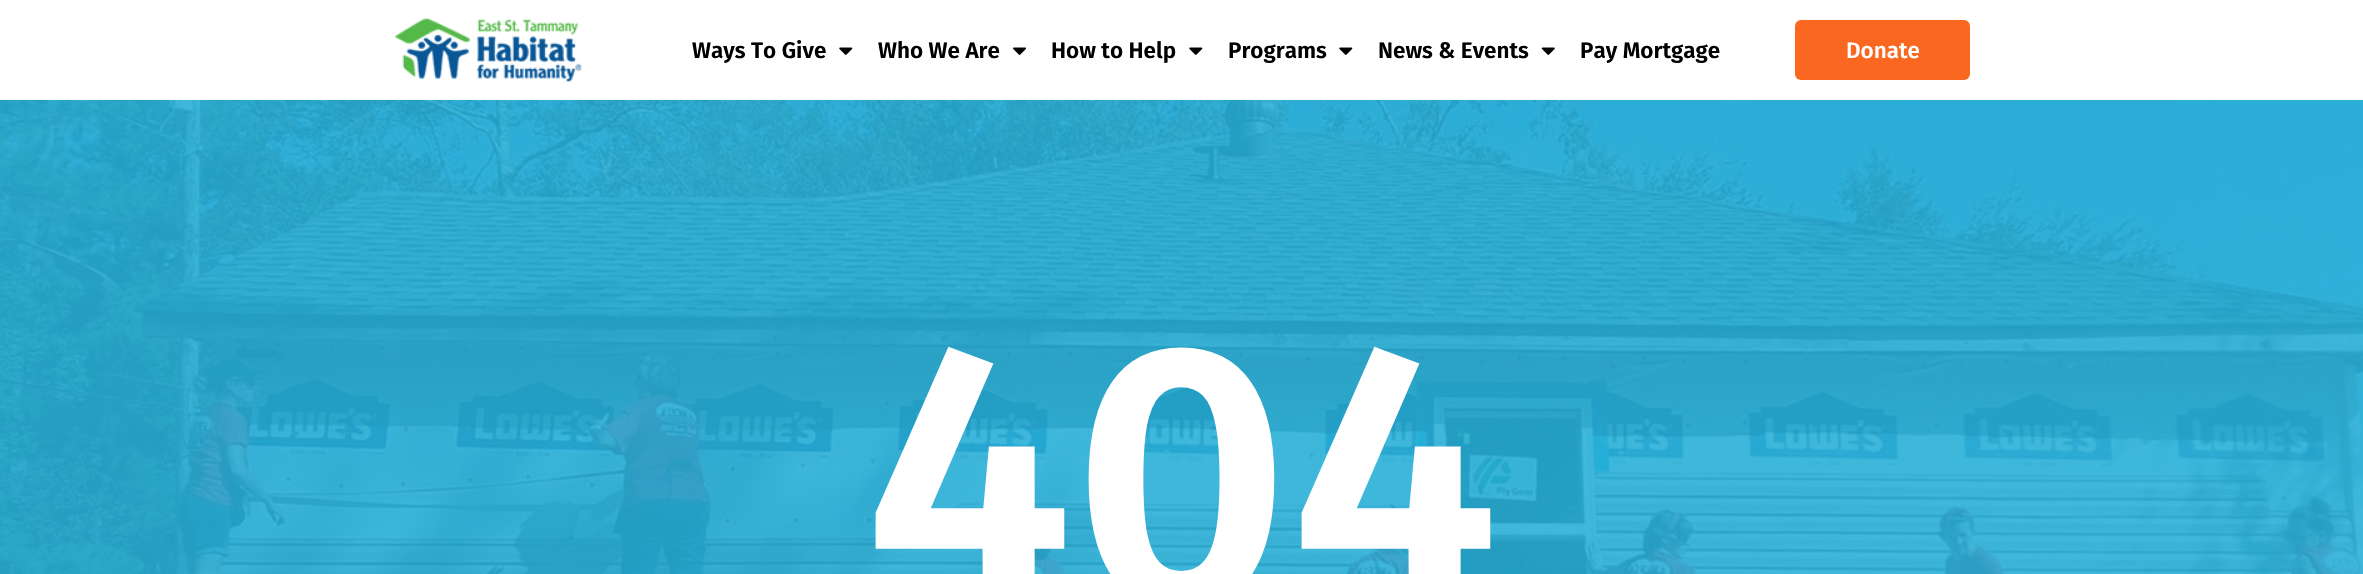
void draw(SkCanvas* canvas) {
	SkPaint paint;
	paint.setAntiAlias(true);
	canvas->clear(0xffffffff);
	canvas->drawImageRect(SkImages::DeferredFromEncodedData(SkData::MakeFromFileName("img1.png")), SkRect::MakeXYWH(395, 18, 187, 64), SkSamplingOptions());
	SkFont f1(fontMgr->matchFamilyStyle("Fira Sans", SkFontStyle(600, SkFontStyle::kNormal_Width, SkFontStyle::kUpright_Slant)), 22.5);
	f1.setSubpixel(true);
	paint.setColor(0xff000000);
	canvas->drawString("Ways To Give", 692, 58, f1, paint);
	canvas->drawImageRect(SkImages::DeferredFromEncodedData(SkData::MakeFromFileName("img2.png")), SkRect::MakeXYWH(839, 47, 14, 8), SkSamplingOptions());
	canvas->drawString("Who We Are", 878, 58, f1, paint);
	canvas->drawImageRect(SkImages::DeferredFromEncodedData(SkData::MakeFromFileName("img3.png")), SkRect::MakeXYWH(1013, 47, 13, 8), SkSamplingOptions());
	canvas->drawString("How to Help", 1051, 58, f1, paint);
	canvas->drawImageRect(SkImages::DeferredFromEncodedData(SkData::MakeFromFileName("img2.png")), SkRect::MakeXYWH(1189, 47, 14, 8), SkSamplingOptions());
	canvas->drawString("Programs", 1228, 58, f1, paint);
	canvas->drawImageRect(SkImages::DeferredFromEncodedData(SkData::MakeFromFileName("img2.png")), SkRect::MakeXYWH(1339, 47, 14, 8), SkSamplingOptions());
	canvas->drawString("News & Events", 1378, 58, f1, paint);
	canvas->drawImageRect(SkImages::DeferredFromEncodedData(SkData::MakeFromFileName("img4.png")), SkRect::MakeXYWH(1541, 47, 14, 8), SkSamplingOptions());
	canvas->drawString("Pay Mortgage", 1580, 58, f1, paint);
	paint.setColor(0xfffa6720);
	canvas->drawRoundRect(SkRect::MakeXYWH(1795, 20, 175, 60), 6, 6, paint);
	SkFont f2(fontMgr->matchFamilyStyle("Fira Sans", SkFontStyle(500, SkFontStyle::kNormal_Width, SkFontStyle::kUpright_Slant)), 22.5);
	f2.setSubpixel(true);
	paint.setColor(0xffffffff);
	canvas->drawString("Donate", 1846, 58, f2, paint);
	canvas->drawImageRect(SkImages::DeferredFromEncodedData(SkData::MakeFromFileName("img5.png")), SkRect::MakeXYWH(0, 100, 2363, 474), SkSamplingOptions());
	SkFont f3(fontMgr->matchFamilyStyle("Fira Sans", SkFontStyle(600, SkFontStyle::kNormal_Width, SkFontStyle::kUpright_Slant)), 375);
	f3.setSubpixel(true);
	canvas->drawString("404", 864, 605, f3, paint);
}
